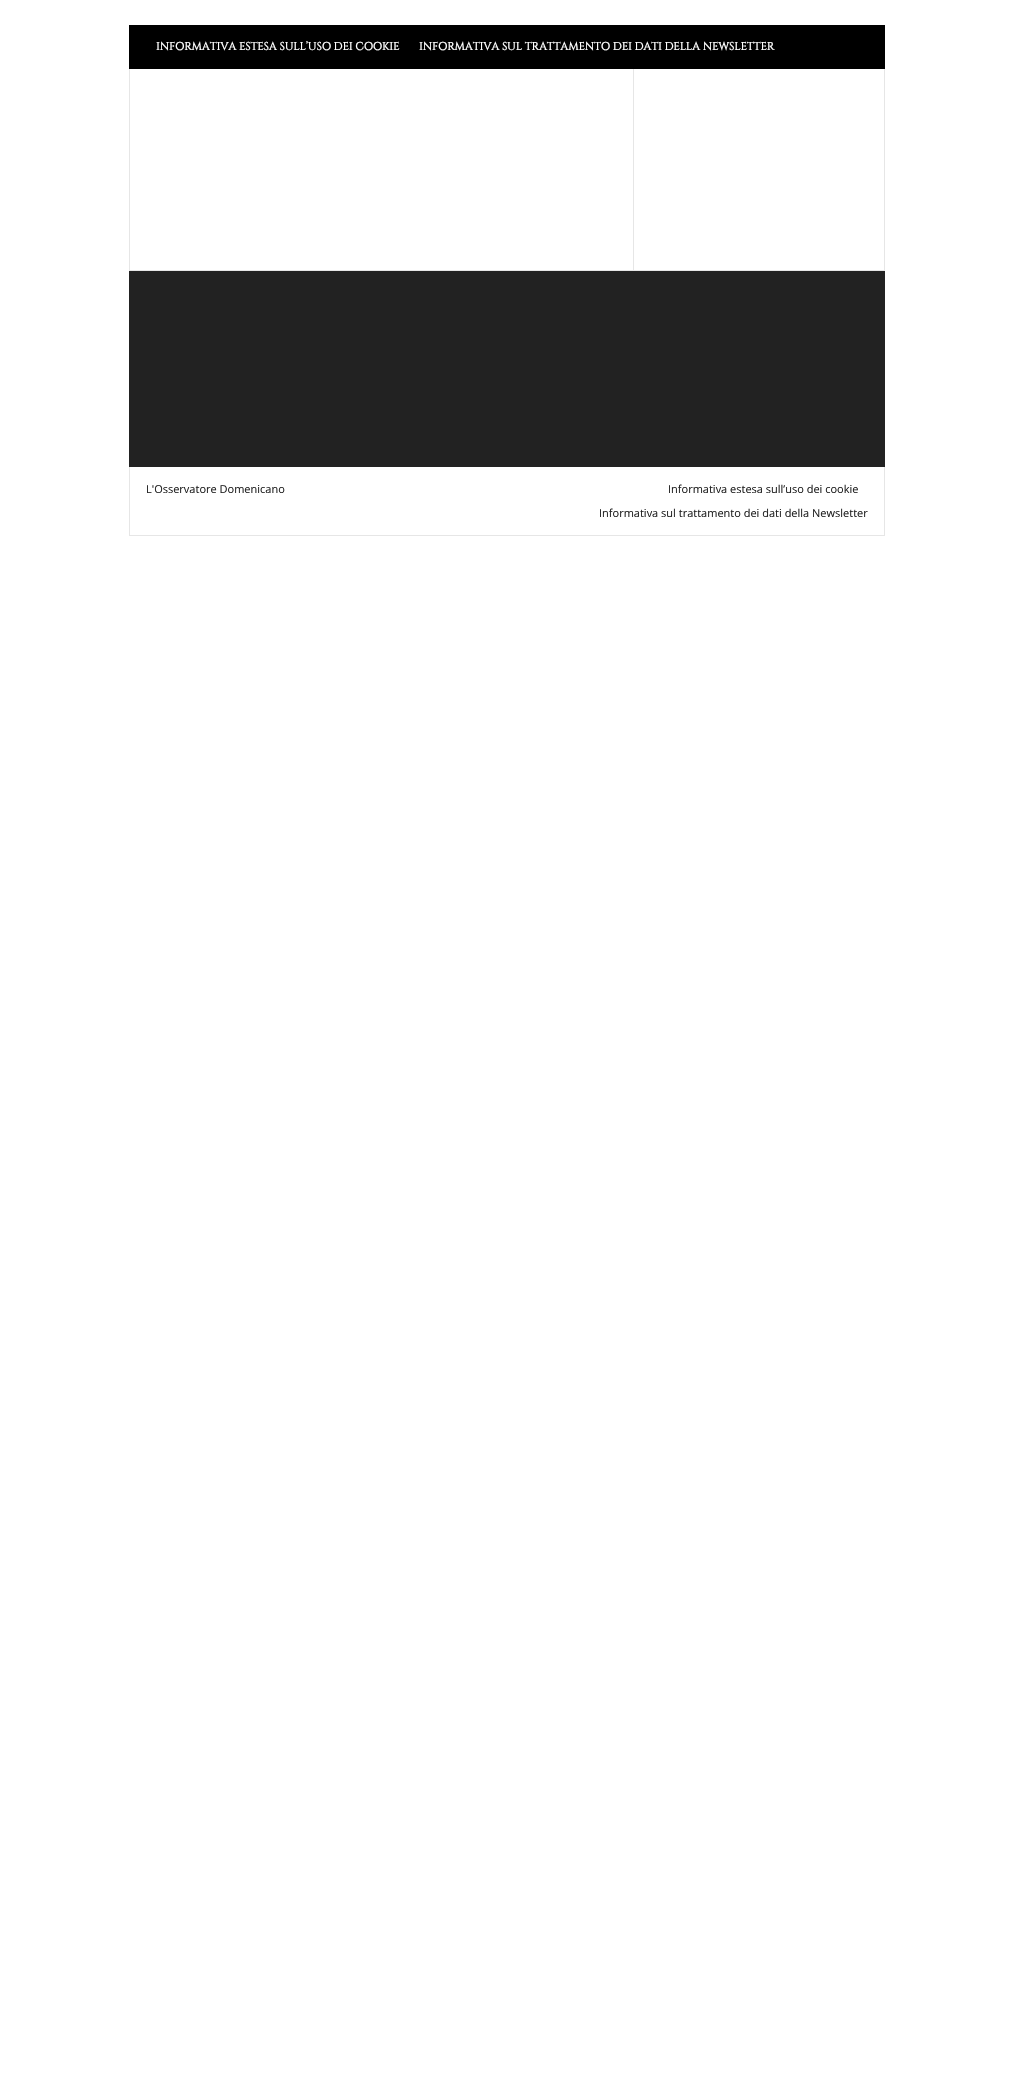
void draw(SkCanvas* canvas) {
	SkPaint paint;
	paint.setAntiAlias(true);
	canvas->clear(0xffffffff);
	paint.setColor(0xff000000);
	canvas->drawRect(SkRect::MakeXYWH(129, 25, 756, 44), paint);
	SkFont f1(fontMgr->matchFamilyStyle("Cinzel", SkFontStyle::Bold()), 11);
	f1.setSubpixel(true);
	paint.setColor(0xffffffff);
	canvas->drawString("INFORMATIVA ESTESA SULL’USO DEI COOKIE", 156, 50, f1, paint);
	canvas->drawString("INFORMATIVA SUL TRATTAMENTO DEI DATI DELLA NEWSLETTER", 419, 50, f1, paint);
	paint.setColor(0xffe6e6e6);
	canvas->drawRect(SkRect::MakeXYWH(129, 270, 756, 1), paint);
	canvas->drawRect(SkRect::MakeXYWH(129, 69, 1, 201), paint);
	canvas->drawRect(SkRect::MakeXYWH(633, 69, 1, 201), paint);
	canvas->drawRect(SkRect::MakeXYWH(884, 69, 1, 201), paint);
	paint.setColor(0xff222222);
	canvas->drawRect(SkRect::MakeXYWH(129, 271, 756, 196), paint);
	paint.setColor(0xffe6e6e6);
	canvas->drawRect(SkRect::MakeXYWH(129, 467, 1, 68), paint);
	SkFont f2(fontMgr->matchFamilyStyle("Open Sans", SkFontStyle::Normal()), 11);
	f2.setSubpixel(true);
	paint.setColor(0xff222222);
	canvas->drawString("L'Osservatore Domenicano", 146, 493, f2, paint);
	canvas->drawString("Informativa estesa sull’uso dei cookie", 668, 493, f2, paint);
	canvas->drawString("Informativa sul trattamento dei dati della Newsletter", 599, 517, f2, paint);
	paint.setColor(0xffe6e6e6);
	canvas->drawRect(SkRect::MakeXYWH(884, 467, 1, 68), paint);
	canvas->drawRect(SkRect::MakeXYWH(129, 535, 756, 1), paint);
}
